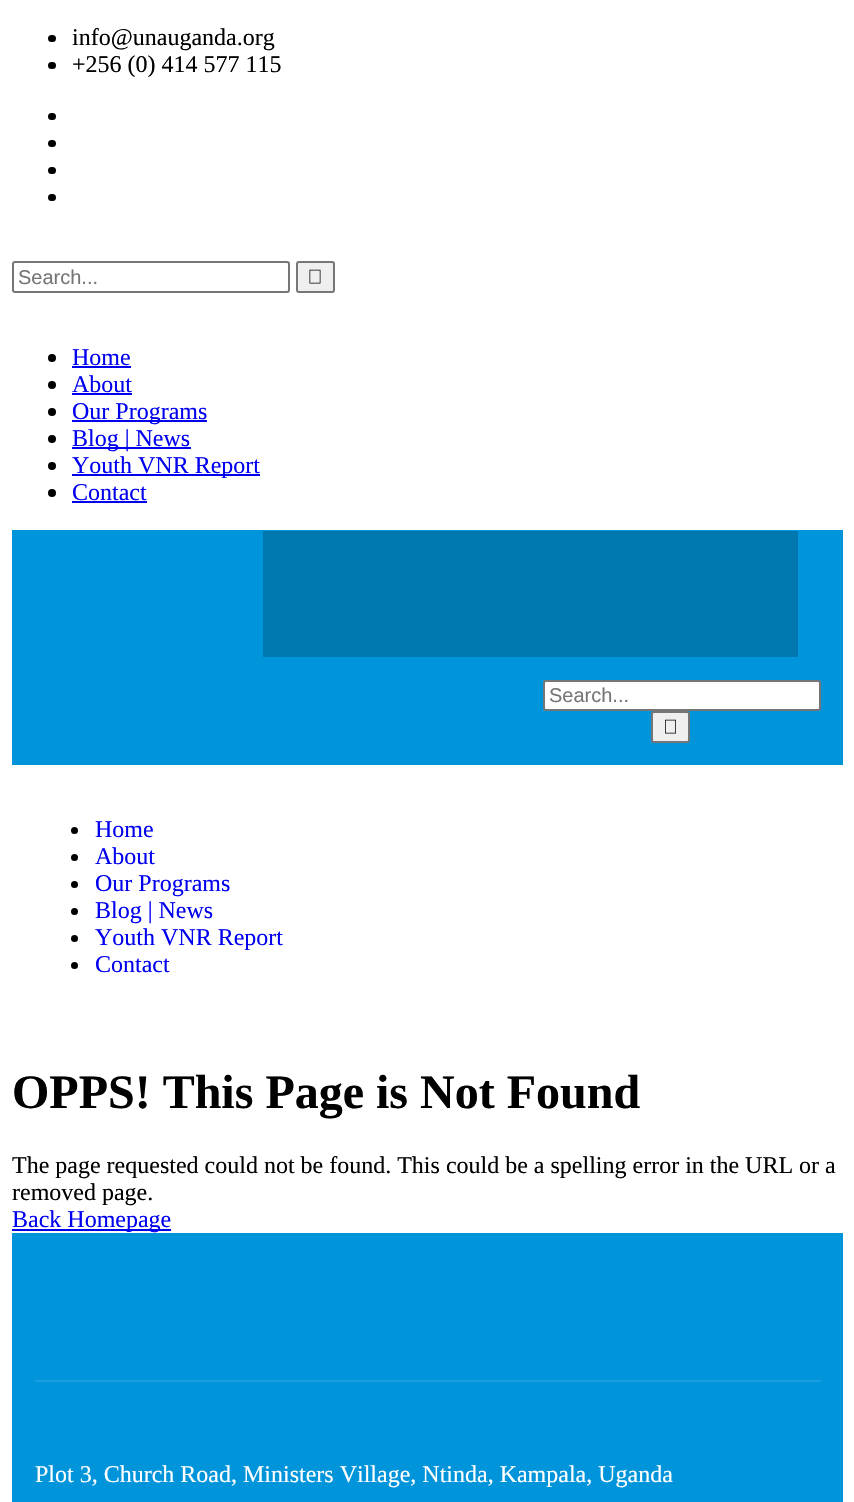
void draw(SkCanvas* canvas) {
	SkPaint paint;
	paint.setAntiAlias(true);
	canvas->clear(0xffffffff);
	paint.setColor(0xff000000);
	canvas->drawRoundRect(SkRect::MakeXYWH(48, 35, 8, 7), 3.5, 3.5, paint);
	SkFont f1(fontMgr->matchFamilyStyle("Liberation Serif", SkFontStyle::Normal()), 24);
	f1.setSubpixel(true);
	canvas->drawString("info@unauganda.org", 72, 45, f1, paint);
	canvas->drawRoundRect(SkRect::MakeXYWH(48, 62, 8, 7), 3.5, 3.5, paint);
	canvas->drawString("+256 (0) 414 577 115", 72, 72, f1, paint);
	canvas->drawRoundRect(SkRect::MakeXYWH(48, 113, 8, 7), 3.5, 3.5, paint);
	canvas->drawRoundRect(SkRect::MakeXYWH(48, 140, 8, 7), 3.5, 3.5, paint);
	canvas->drawRoundRect(SkRect::MakeXYWH(48, 167, 8, 7), 3.5, 3.5, paint);
	canvas->drawRoundRect(SkRect::MakeXYWH(48, 194, 8, 7), 3.5, 3.5, paint);
	paint.setStroke(true);
	paint.setStrokeWidth(2);
	paint.setColor(0xff767676);
	canvas->drawRoundRect(SkRect::MakeXYWH(13, 262, 276, 30), 2, 2, paint);
	SkFont f2(fontMgr->matchFamilyStyle("Liberation Sans", SkFontStyle::Normal()), 20);
	f2.setSubpixel(true);
	paint.setStroke(false);
	paint.setColor(0xff757575);
	canvas->drawString("Search...", 18, 284, f2, paint);
	paint.setColor(0xffefefef);
	canvas->drawRoundRect(SkRect::MakeXYWH(297, 262, 37, 30), 2, 2, paint);
	paint.setStroke(true);
	paint.setColor(0xff767676);
	canvas->drawRoundRect(SkRect::MakeXYWH(297, 262, 37, 30), 2, 2, paint);
	canvas->drawImageRect(SkImages::DeferredFromEncodedData(SkData::MakeFromFileName("img1.png")), SkRect::MakeXYWH(309, 269, 12, 15), SkSamplingOptions());
	paint.setStroke(false);
	paint.setColor(0xff000000);
	canvas->drawCircle(52, 358, 4, paint);
	paint.setColor(0xff0000ee);
	canvas->drawString("Home", 72, 365, f1, paint);
	canvas->drawRect(SkRect::MakeXYWH(72, 366, 59, 2), paint);
	paint.setColor(0xff000000);
	canvas->drawCircle(52, 385, 4, paint);
	paint.setColor(0xff0000ee);
	canvas->drawString("About", 72, 392, f1, paint);
	canvas->drawRect(SkRect::MakeXYWH(72, 393, 60, 2), paint);
	paint.setColor(0xff000000);
	canvas->drawCircle(52, 412, 4, paint);
	paint.setColor(0xff0000ee);
	canvas->drawRect(SkRect::MakeXYWH(72, 420, 135, 2), paint);
	canvas->drawString("Our Programs", 72, 419, f1, paint);
	paint.setColor(0xff000000);
	canvas->drawCircle(52, 439, 4, paint);
	paint.setColor(0xff0000ee);
	canvas->drawRect(SkRect::MakeXYWH(72, 447, 119, 2), paint);
	canvas->drawString("Blog | News", 72, 446, f1, paint);
	paint.setColor(0xff000000);
	canvas->drawCircle(52, 466, 4, paint);
	paint.setColor(0xff0000ee);
	canvas->drawRect(SkRect::MakeXYWH(72, 474, 188, 2), paint);
	canvas->drawString("Youth VNR Report", 72, 473, f1, paint);
	paint.setColor(0xff000000);
	canvas->drawCircle(52, 493, 4, paint);
	paint.setColor(0xff0000ee);
	canvas->drawString("Contact", 72, 500, f1, paint);
	canvas->drawRect(SkRect::MakeXYWH(72, 501, 75, 2), paint);
	paint.setColor(0xff0095da);
	canvas->drawRect(SkRect::MakeXYWH(12, 530, 831, 235), paint);
	paint.setColor(0xff0077ae);
	canvas->drawRect(SkRect::MakeXYWH(263, 531, 535, 126), paint);
	paint.setColor(0xffffffff);
	canvas->drawRoundRect(SkRect::MakeXYWH(544, 681, 276, 29), 2, 2, paint);
	paint.setStroke(true);
	paint.setColor(0xff767676);
	canvas->drawRoundRect(SkRect::MakeXYWH(544, 681, 276, 29), 2, 2, paint);
	paint.setStroke(false);
	paint.setColor(0xff757575);
	canvas->drawString("Search...", 549, 702, f2, paint);
	paint.setColor(0xffefefef);
	canvas->drawRoundRect(SkRect::MakeXYWH(652, 712, 37, 30), 2, 2, paint);
	paint.setStroke(true);
	paint.setColor(0xff767676);
	canvas->drawRoundRect(SkRect::MakeXYWH(652, 712, 37, 30), 2, 2, paint);
	canvas->drawImageRect(SkImages::DeferredFromEncodedData(SkData::MakeFromFileName("img2.png")), SkRect::MakeXYWH(665, 719, 11, 15), SkSamplingOptions());
	paint.setStroke(false);
	paint.setColor(0xff000000);
	canvas->drawCircle(74.5, 830.5, 3.5, paint);
	paint.setColor(0xff0000ee);
	canvas->drawString("Home", 95, 837, f1, paint);
	paint.setColor(0xff000000);
	canvas->drawCircle(74.5, 857.5, 3.5, paint);
	paint.setColor(0xff0000ee);
	canvas->drawString("About", 95, 864, f1, paint);
	paint.setColor(0xff000000);
	canvas->drawCircle(74.5, 884.5, 3.5, paint);
	paint.setColor(0xff0000ee);
	canvas->drawString("Our Programs", 95, 891, f1, paint);
	paint.setColor(0xff000000);
	canvas->drawCircle(74.5, 911.5, 3.5, paint);
	paint.setColor(0xff0000ee);
	canvas->drawString("Blog | News", 95, 918, f1, paint);
	paint.setColor(0xff000000);
	canvas->drawCircle(74.5, 938.5, 3.5, paint);
	paint.setColor(0xff0000ee);
	canvas->drawString("Youth VNR Report", 95, 945, f1, paint);
	paint.setColor(0xff000000);
	canvas->drawCircle(74.5, 965.5, 3.5, paint);
	paint.setColor(0xff0000ee);
	canvas->drawString("Contact", 95, 972, f1, paint);
	SkFont f3(fontMgr->matchFamilyStyle("Liberation Serif", SkFontStyle::Bold()), 48);
	f3.setSubpixel(true);
	paint.setColor(0xff000000);
	canvas->drawString("OPPS! This Page is Not Found", 12, 1108, f3, paint);
	canvas->drawString("The page requested could not be found. This could be a spelling error in the URL or a", 12, 1173, f1, paint);
	canvas->drawString("removed page.", 12, 1200, f1, paint);
	paint.setColor(0xff0000ee);
	canvas->drawRect(SkRect::MakeXYWH(12, 1229, 159, 2), paint);
	canvas->drawString("Back Homepage", 12, 1227, f1, paint);
	paint.setColor(0xff0095da);
	canvas->drawRect(SkRect::MakeXYWH(12, 1233, 831, 269), paint);
	paint.setColor(0xff1aa0de);
	canvas->drawRect(SkRect::MakeXYWH(35, 1380, 786, 2), paint);
	paint.setColor(0xffffffff);
	canvas->drawString("Plot 3, Church Road, Ministers Village, Ntinda, Kampala, Uganda", 35, 1482, f1, paint);
}
